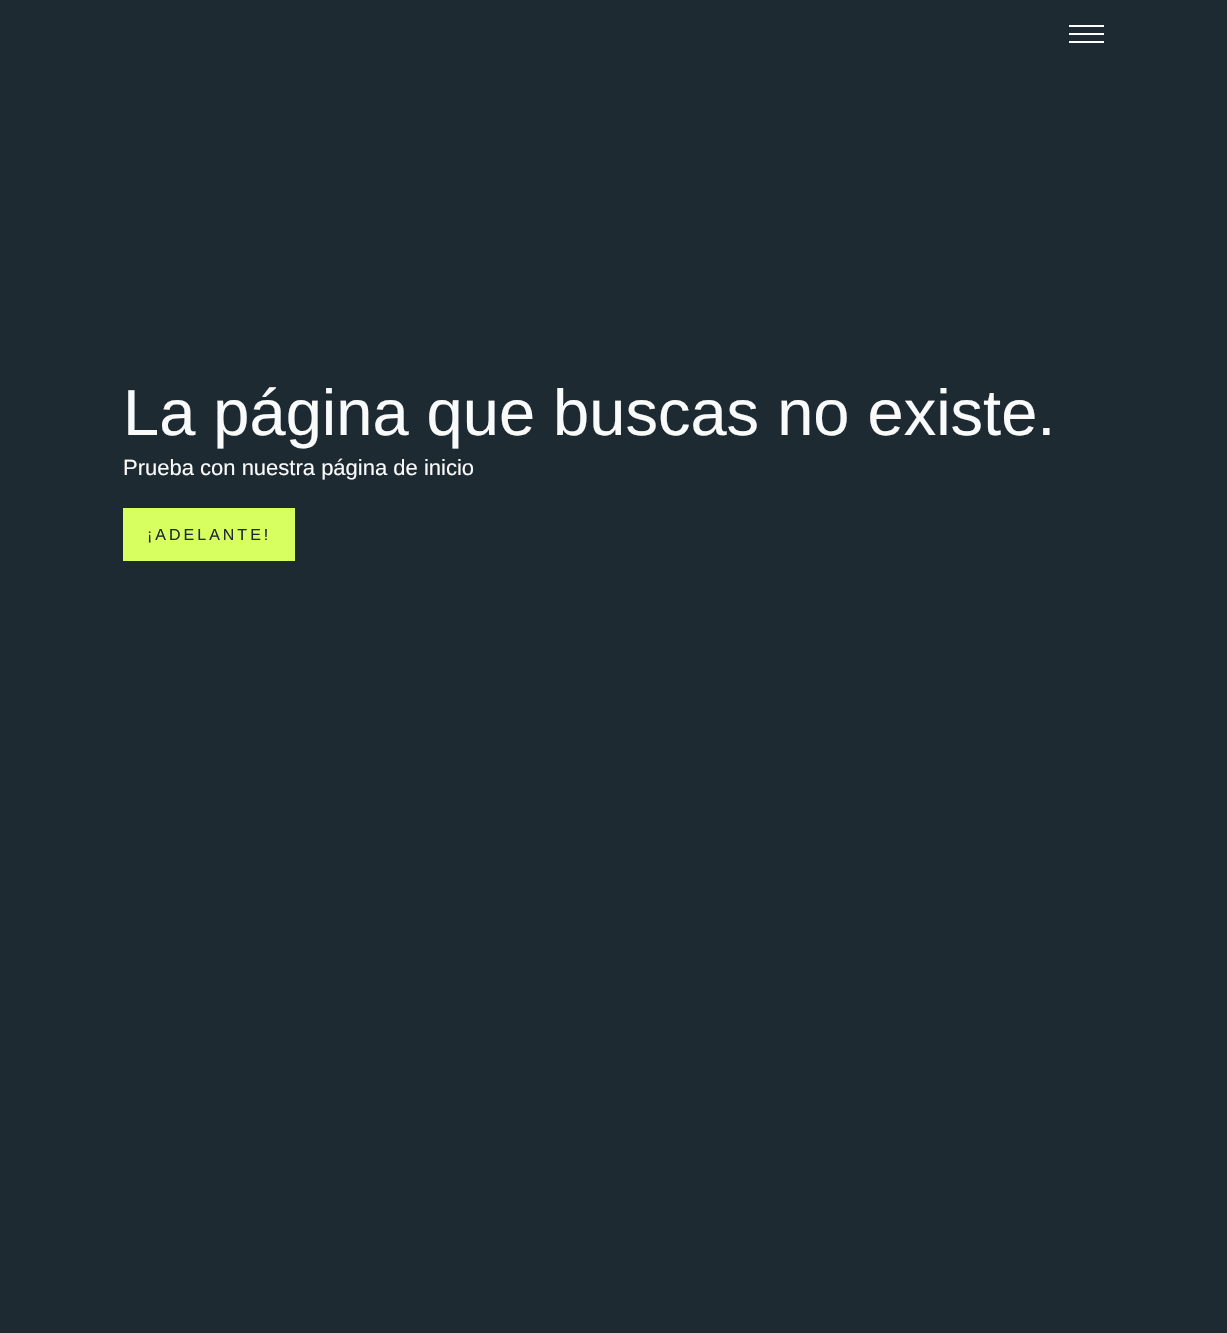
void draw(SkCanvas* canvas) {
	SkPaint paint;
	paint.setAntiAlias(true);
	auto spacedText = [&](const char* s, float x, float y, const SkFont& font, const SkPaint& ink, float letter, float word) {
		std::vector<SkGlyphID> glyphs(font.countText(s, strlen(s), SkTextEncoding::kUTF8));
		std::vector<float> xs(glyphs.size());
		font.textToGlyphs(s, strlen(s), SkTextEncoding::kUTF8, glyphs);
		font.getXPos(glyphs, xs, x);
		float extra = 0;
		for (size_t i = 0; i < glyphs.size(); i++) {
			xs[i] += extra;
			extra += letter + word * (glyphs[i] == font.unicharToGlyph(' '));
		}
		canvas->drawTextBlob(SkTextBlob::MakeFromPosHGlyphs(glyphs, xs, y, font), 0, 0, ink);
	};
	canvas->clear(0xff1e2a32);
	paint.setColor(0xffffffff);
	canvas->drawRect(SkRect::MakeXYWH(1069, 25, 35, 2), paint);
	canvas->drawRect(SkRect::MakeXYWH(1069, 33, 35, 2), paint);
	canvas->drawRect(SkRect::MakeXYWH(1069, 41, 35, 2), paint);
	SkFont f1(fontMgr->matchFamilyStyle("Liberation Sans", SkFontStyle::Normal()), 65);
	f1.setSubpixel(true);
	paint.setColor(0xfff9fafa);
	canvas->drawString("La página que buscas no existe.", 123, 435, f1, paint);
	SkFont f2(fontMgr->matchFamilyStyle("Liberation Sans", SkFontStyle::Normal()), 22);
	f2.setSubpixel(true);
	canvas->drawString("Prueba con nuestra página de inicio", 123, 475, f2, paint);
	paint.setColor(0xffd6ff5f);
	canvas->drawRect(SkRect::MakeXYWH(123, 508, 172, 53), paint);
	SkFont f3(fontMgr->matchFamilyStyle("Liberation Sans", SkFontStyle::Normal()), 16);
	f3.setSubpixel(true);
	paint.setColor(0xff1e2a32);
	spacedText("¡ADELANTE!", 147, 540, f3, paint, 3, 0);
}
